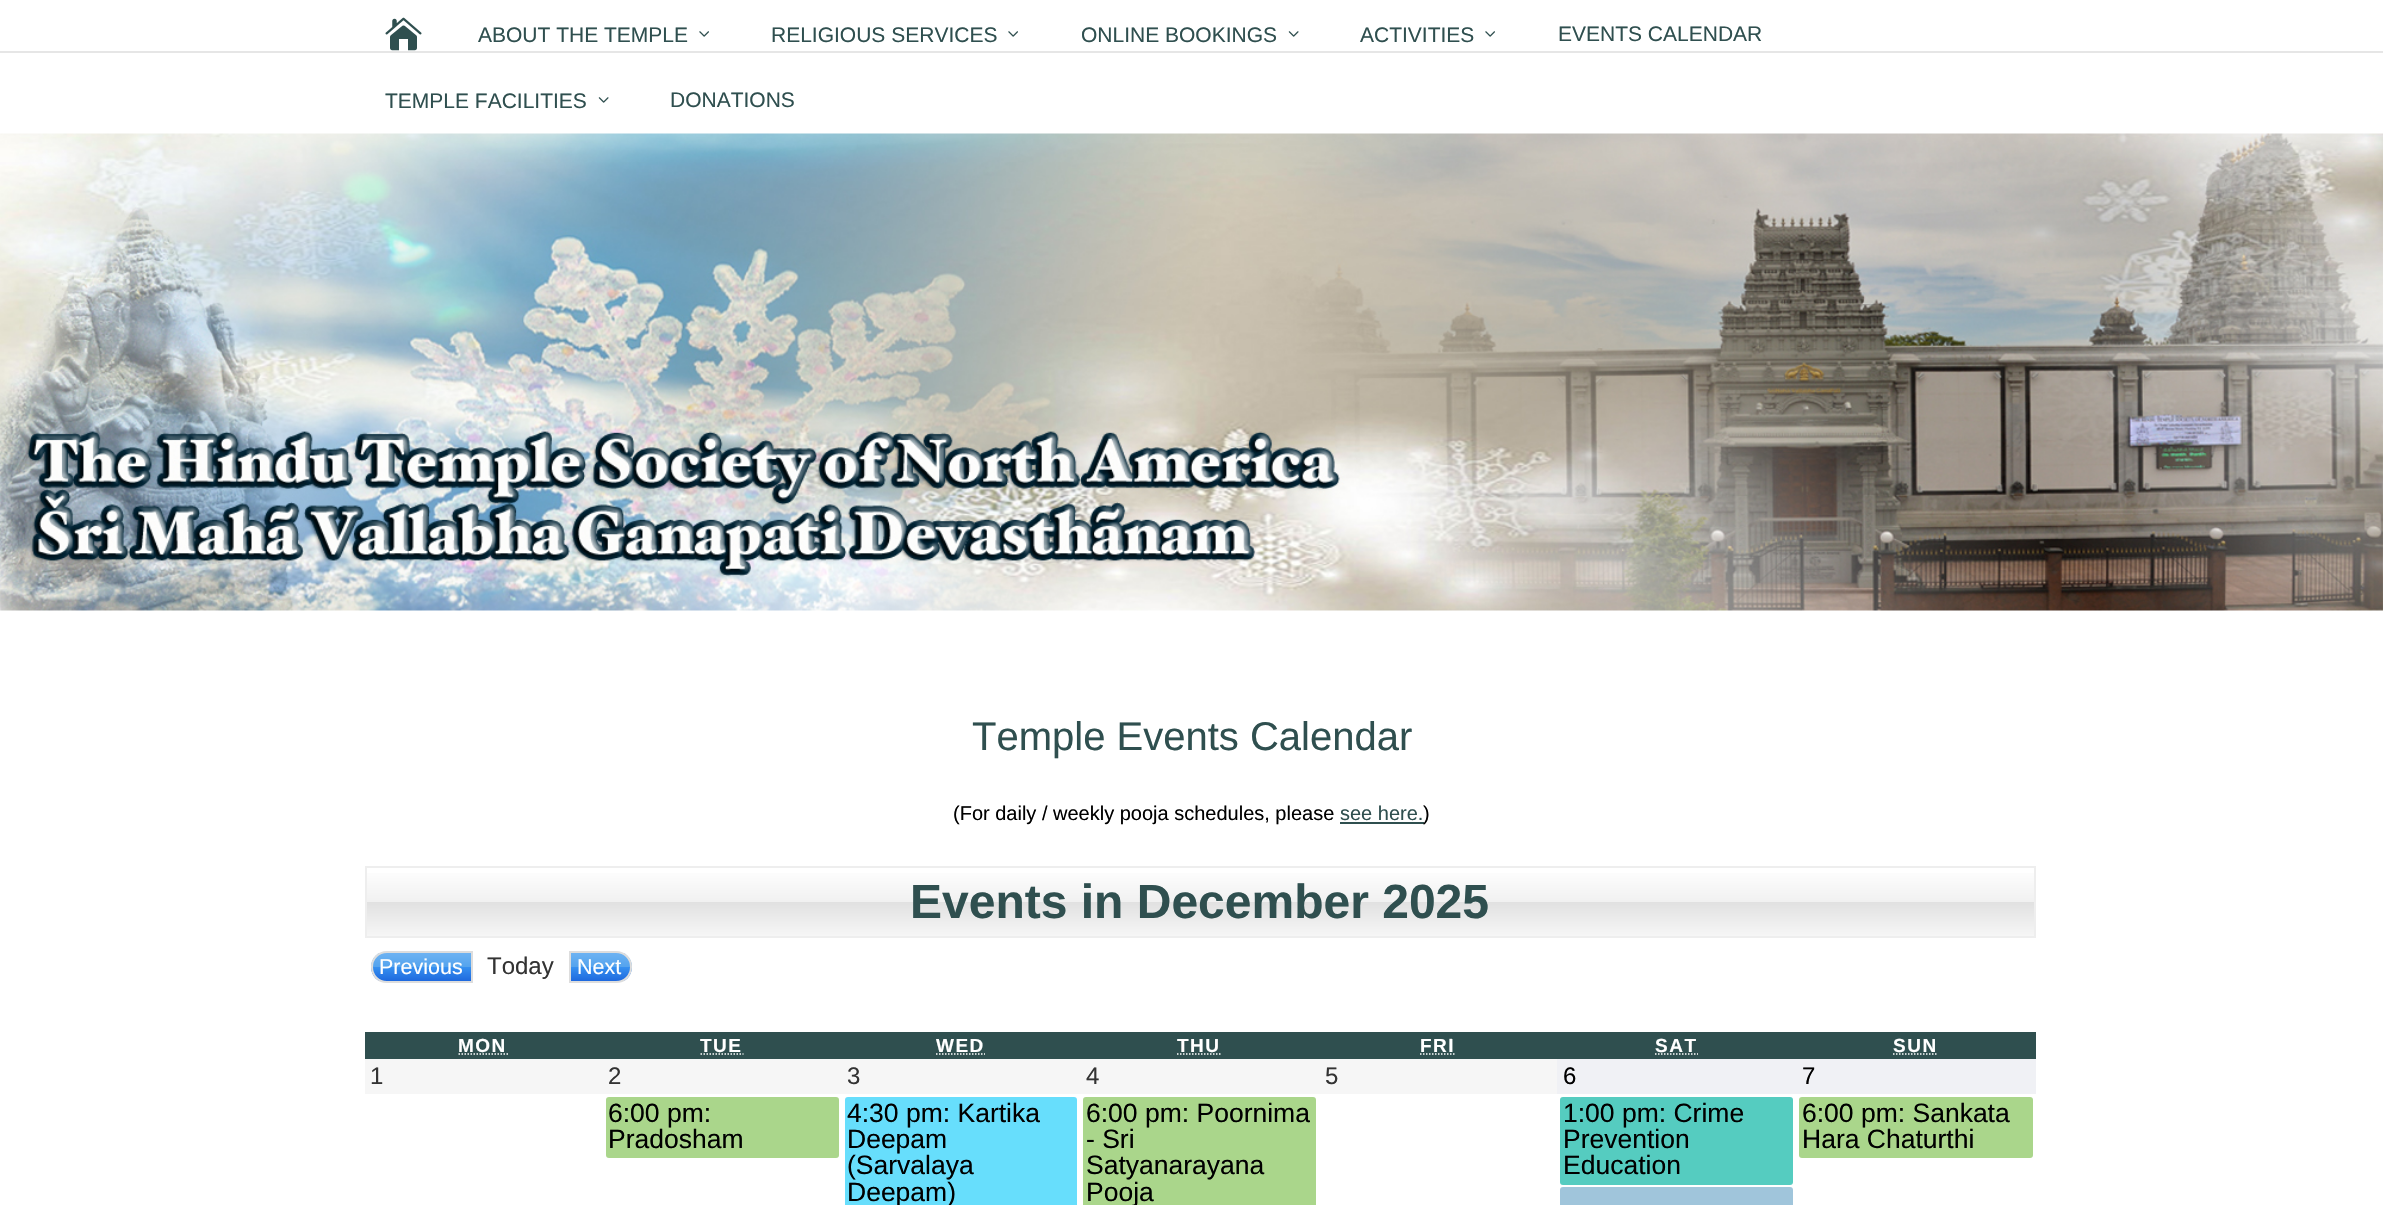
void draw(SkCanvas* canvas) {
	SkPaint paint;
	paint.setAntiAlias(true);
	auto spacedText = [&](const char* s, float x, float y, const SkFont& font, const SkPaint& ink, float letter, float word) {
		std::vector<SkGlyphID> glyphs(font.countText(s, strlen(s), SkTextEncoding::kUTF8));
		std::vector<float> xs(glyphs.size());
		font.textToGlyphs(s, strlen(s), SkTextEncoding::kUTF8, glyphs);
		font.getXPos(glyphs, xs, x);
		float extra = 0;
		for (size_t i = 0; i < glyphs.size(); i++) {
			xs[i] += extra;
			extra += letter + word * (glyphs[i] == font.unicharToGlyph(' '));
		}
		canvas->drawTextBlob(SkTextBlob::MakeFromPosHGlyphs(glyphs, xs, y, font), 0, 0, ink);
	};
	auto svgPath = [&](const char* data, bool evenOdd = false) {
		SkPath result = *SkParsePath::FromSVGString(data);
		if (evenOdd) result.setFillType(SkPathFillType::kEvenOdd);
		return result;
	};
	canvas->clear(0xffffffff);
	canvas->drawImageRect(SkImages::DeferredFromEncodedData(SkData::MakeFromFileName("img1.png")), SkRect::MakeXYWH(385, 17, 37, 34), SkSamplingOptions());
	SkFont f1(fontMgr->matchFamilyStyle("Liberation Sans", SkFontStyle::Normal()), 21);
	f1.setSubpixel(true);
	paint.setColor(0xff2f4f4f);
	canvas->drawString("ABOUT THE TEMPLE", 478, 42, f1, paint);
	canvas->drawImageRect(SkImages::DeferredFromEncodedData(SkData::MakeFromFileName("img2.png")), SkRect::MakeXYWH(699, 31, 10, 6), SkSamplingOptions());
	canvas->drawString("RELIGIOUS SERVICES", 771, 42, f1, paint);
	canvas->drawImageRect(SkImages::DeferredFromEncodedData(SkData::MakeFromFileName("img2.png")), SkRect::MakeXYWH(1008, 31, 10, 6), SkSamplingOptions());
	canvas->drawString("ONLINE BOOKINGS", 1081, 42, f1, paint);
	canvas->drawImageRect(SkImages::DeferredFromEncodedData(SkData::MakeFromFileName("img3.png")), SkRect::MakeXYWH(1288, 31, 11, 6), SkSamplingOptions());
	canvas->drawString("ACTIVITIES", 1360, 42, f1, paint);
	canvas->drawImageRect(SkImages::DeferredFromEncodedData(SkData::MakeFromFileName("img2.png")), SkRect::MakeXYWH(1485, 31, 10, 6), SkSamplingOptions());
	canvas->drawString("EVENTS CALENDAR", 1558, 41, f1, paint);
	canvas->drawString("TEMPLE FACILITIES", 385, 108, f1, paint);
	canvas->drawImageRect(SkImages::DeferredFromEncodedData(SkData::MakeFromFileName("img3.png")), SkRect::MakeXYWH(598, 97, 11, 6), SkSamplingOptions());
	canvas->drawString("DONATIONS", 670, 107, f1, paint);
	paint.setColor(0xffe6e6e6);
	canvas->drawRect(SkRect::MakeXYWH(0, 51, 2383, 2), paint);
	canvas->drawImageRect(SkImages::DeferredFromEncodedData(SkData::MakeFromFileName("img4.png")), SkRect::MakeXYWH(0, 133, 2383, 478), SkSamplingOptions());
	SkFont f2(fontMgr->matchFamilyStyle("Liberation Sans", SkFontStyle::Normal()), 40);
	f2.setSubpixel(true);
	paint.setColor(0xff2f4f4f);
	canvas->drawString("Temple Events Calendar", 972, 750, f2, paint);
	SkFont f3(fontMgr->matchFamilyStyle("Liberation Sans", SkFontStyle::Normal()), 20);
	f3.setSubpixel(true);
	paint.setColor(0xff000000);
	canvas->drawString("(For daily / weekly pooja schedules, please", 953, 820, f3, paint);
	paint.setColor(0xff2f4f4f);
	canvas->drawString("see here.", 1340, 820, f3, paint);
	canvas->drawRect(SkRect::MakeXYWH(1340, 822, 84, 2), paint);
	paint.setColor(0xff000000);
	canvas->drawString(")", 1423, 820, f3, paint);
	{
		const SkColor colors[] = {0xffffffff, 0xfff1f1f1, 0xffe1e1e1, 0xfff6f6f6};
		const float stops[] = {0, 0.5, 0.51, 1};
		const SkPoint ends[] = {{1200, 867}, {1200, 936}};
		paint.setShader(SkGradientShader::MakeLinear(ends, colors, stops, 4, SkTileMode::kClamp));
		paint.setAlpha(255);
	}
	canvas->drawRect(SkRect::MakeXYWH(367, 873, 1667, 63), paint);
	paint.setStroke(true);
	paint.setStrokeWidth(2);
	paint.setShader(nullptr);
	paint.setColor(0xffeeeeee);
	canvas->drawRect(SkRect::MakeXYWH(366, 867, 1669, 70), paint);
	SkFont f4(fontMgr->matchFamilyStyle("Liberation Sans", SkFontStyle::Bold()), 48);
	f4.setSubpixel(true);
	paint.setStroke(false);
	paint.setColor(0xff2f4f4f);
	canvas->drawString("Events in December 2025", 910, 918, f4, paint);
	canvas->save();
	canvas->clipPath(svgPath("M387 951H473V983H387C378 983 371 976 371 967C371 958 378 951 387 951Z"), true);
	{
		const SkColor colors[] = {0xff6db3f2, 0xff54a3ee, 0xff3690f0, 0xff1e69de};
		const float stops[] = {0, 0.5, 0.51, 1};
		const SkPoint ends[] = {{422, 953}, {422, 981}};
		paint.setShader(SkGradientShader::MakeLinear(ends, colors, stops, 4, SkTileMode::kClamp));
		paint.setAlpha(255);
	}
	canvas->drawRect(SkRect::MakeXYWH(371, 953, 100, 28), paint);
	canvas->restore();
	paint.setStroke(true);
	paint.setShader(nullptr);
	paint.setColor(0xffdddddd);
	canvas->drawPath(svgPath("M387 952H472V982H387C378.5 982 372 975.5 372 967C372 958.5 378.5 952 387 952Z"), paint);
	SkFont f5(fontMgr->matchFamilyStyle("Liberation Sans", SkFontStyle::Normal()), 21.5);
	f5.setSubpixel(true);
	paint.setStroke(false);
	paint.setColor(0xffffffff);
	canvas->drawString("Previous", 379, 974, f5, paint);
	SkFont f6(fontMgr->matchFamilyStyle("Liberation Sans", SkFontStyle::Normal()), 24);
	f6.setSubpixel(true);
	paint.setColor(0xff333333);
	canvas->drawString("Today", 487, 974, f6, paint);
	canvas->save();
	canvas->clipPath(svgPath("M569 951H616C625 951 632 958 632 967C632 976 625 983 616 983H569Z"), true);
	{
		const SkColor colors[] = {0xff6db3f2, 0xff54a3ee, 0xff3690f0, 0xff1e69de};
		const float stops[] = {0, 0.5, 0.51, 1};
		const SkPoint ends[] = {{600, 953}, {600, 981}};
		paint.setShader(SkGradientShader::MakeLinear(ends, colors, stops, 4, SkTileMode::kClamp));
		paint.setAlpha(255);
	}
	canvas->drawRect(SkRect::MakeXYWH(571, 953, 61, 28), paint);
	canvas->restore();
	paint.setStroke(true);
	paint.setShader(nullptr);
	paint.setColor(0xffdddddd);
	canvas->drawPath(svgPath("M570 952H616C624.5 952 631 958.5 631 967C631 975.5 624.5 982 616 982H570Z"), paint);
	paint.setStroke(false);
	paint.setColor(0xffffffff);
	canvas->drawString("Next", 577, 974, f5, paint);
	paint.setColor(0xff2f4f4f);
	canvas->drawRect(SkRect::MakeXYWH(365, 1032, 1671, 27), paint);
	SkFont f7(fontMgr->matchFamilyStyle("Liberation Sans", SkFontStyle::Bold()), 19);
	f7.setSubpixel(true);
	paint.setColor(0xffffffff);
	spacedText("MON", 458, 1052, f7, paint, 1.5, 0);
	paint.setStroke(true);
	paint.setStrokeWidth(1.5);
	paint.setPathEffect(SkDashPathEffect::Make({{1.5f, 1.5f}}, 0));
	canvas->drawPath(svgPath("M458.5 1054H508"), paint);
	paint.setPathEffect(nullptr);
	paint.setStroke(false);
	spacedText("TUE", 700, 1052, f7, paint, 1.5, 0);
	paint.setStroke(true);
	paint.setPathEffect(SkDashPathEffect::Make({{1.5f, 1.5f}}, 0));
	canvas->drawPath(svgPath("M700.5 1054H743.5"), paint);
	paint.setPathEffect(nullptr);
	paint.setStroke(false);
	spacedText("WED", 936, 1052, f7, paint, 1.5, 0);
	paint.setStroke(true);
	paint.setPathEffect(SkDashPathEffect::Make({{1.5f, 1.5f}}, 0));
	canvas->drawPath(svgPath("M936 1054H985"), paint);
	paint.setPathEffect(nullptr);
	paint.setStroke(false);
	spacedText("THU", 1177, 1052, f7, paint, 1.5, 0);
	paint.setStroke(true);
	paint.setPathEffect(SkDashPathEffect::Make({{1.5f, 1.5f}}, 0));
	canvas->drawPath(svgPath("M1177 1054H1221"), paint);
	paint.setPathEffect(nullptr);
	paint.setStroke(false);
	spacedText("FRI", 1420, 1052, f7, paint, 1.5, 0);
	paint.setStroke(true);
	paint.setPathEffect(SkDashPathEffect::Make({{1.5f, 1.5f}}, 0));
	canvas->drawPath(svgPath("M1420 1054H1455.5"), paint);
	paint.setPathEffect(nullptr);
	paint.setStroke(false);
	spacedText("SAT", 1655, 1052, f7, paint, 1.5, 0);
	paint.setStroke(true);
	paint.setPathEffect(SkDashPathEffect::Make({{1.5f, 1.5f}}, 0));
	canvas->drawPath(svgPath("M1655 1054H1698"), paint);
	paint.setPathEffect(nullptr);
	paint.setStroke(false);
	spacedText("SUN", 1893, 1052, f7, paint, 1.5, 0);
	paint.setStroke(true);
	paint.setPathEffect(SkDashPathEffect::Make({{1.5f, 1.5f}}, 0));
	canvas->drawPath(svgPath("M1893 1054H1938"), paint);
	paint.setPathEffect(nullptr);
	paint.setStroke(false);
	paint.setColor(0xfff6f6f6);
	canvas->drawRect(SkRect::MakeXYWH(365, 1059, 1192, 35), paint);
	paint.setColor(0xff333333);
	canvas->drawString("1", 370, 1084, f6, paint);
	canvas->drawString("2", 608, 1084, f6, paint);
	paint.setColor(0xffaad68b);
	canvas->drawRoundRect(SkRect::MakeXYWH(606, 1097, 233, 61), 3, 3, paint);
	SkFont f8(fontMgr->matchFamilyStyle("Liberation Sans", SkFontStyle::Normal()), 26.5);
	f8.setSubpixel(true);
	paint.setColor(0xff000000);
	canvas->drawString("6:00 pm:", 608, 1122, f8, paint);
	canvas->drawString("Pradosham", 608, 1148, f8, paint);
	paint.setColor(0xff333333);
	canvas->drawString("3", 847, 1084, f6, paint);
	paint.setColor(0xff67defc);
	canvas->drawRoundRect(SkRect::MakeXYWH(845, 1097, 232, 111), 3, 3, paint);
	paint.setColor(0xff000000);
	canvas->drawString("4:30 pm: Kartika", 847, 1122, f8, paint);
	canvas->drawString("Deepam", 847, 1148, f8, paint);
	canvas->drawString("(Sarvalaya", 847, 1174, f8, paint);
	canvas->drawString("Deepam)", 847, 1201, f8, paint);
	paint.setColor(0xff333333);
	canvas->drawString("4", 1086, 1084, f6, paint);
	paint.setColor(0xffaad68b);
	canvas->drawRoundRect(SkRect::MakeXYWH(1083, 1097, 233, 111), 3, 3, paint);
	paint.setColor(0xff000000);
	canvas->drawString("6:00 pm: Poornima", 1086, 1122, f8, paint);
	canvas->drawString("- Sri", 1086, 1148, f8, paint);
	canvas->drawString("Satyanarayana", 1086, 1174, f8, paint);
	canvas->drawString("Pooja", 1086, 1201, f8, paint);
	paint.setColor(0xff333333);
	canvas->drawString("5", 1325, 1084, f6, paint);
	paint.setColor(0xfff0f1f5);
	canvas->drawRect(SkRect::MakeXYWH(1557, 1059, 479, 35), paint);
	paint.setColor(0xff000000);
	canvas->drawString("6", 1563, 1084, f6, paint);
	paint.setColor(0xff55ccc0);
	canvas->drawRoundRect(SkRect::MakeXYWH(1560, 1097, 233, 88), 3, 3, paint);
	paint.setColor(0xff000000);
	canvas->drawString("1:00 pm: Crime", 1563, 1122, f8, paint);
	canvas->drawString("Prevention", 1563, 1148, f8, paint);
	canvas->drawString("Education", 1563, 1174, f8, paint);
	paint.setColor(0xffa0c5db);
	canvas->drawRoundRect(SkRect::MakeXYWH(1560, 1187, 233, 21), 3, 3, paint);
	paint.setColor(0xff000000);
	canvas->drawString("7", 1802, 1084, f6, paint);
	paint.setColor(0xffaad68b);
	canvas->drawRoundRect(SkRect::MakeXYWH(1799, 1097, 234, 61), 3, 3, paint);
	paint.setColor(0xff000000);
	canvas->drawString("6:00 pm: Sankata", 1802, 1122, f8, paint);
	canvas->drawString("Hara Chaturthi", 1802, 1148, f8, paint);
}
